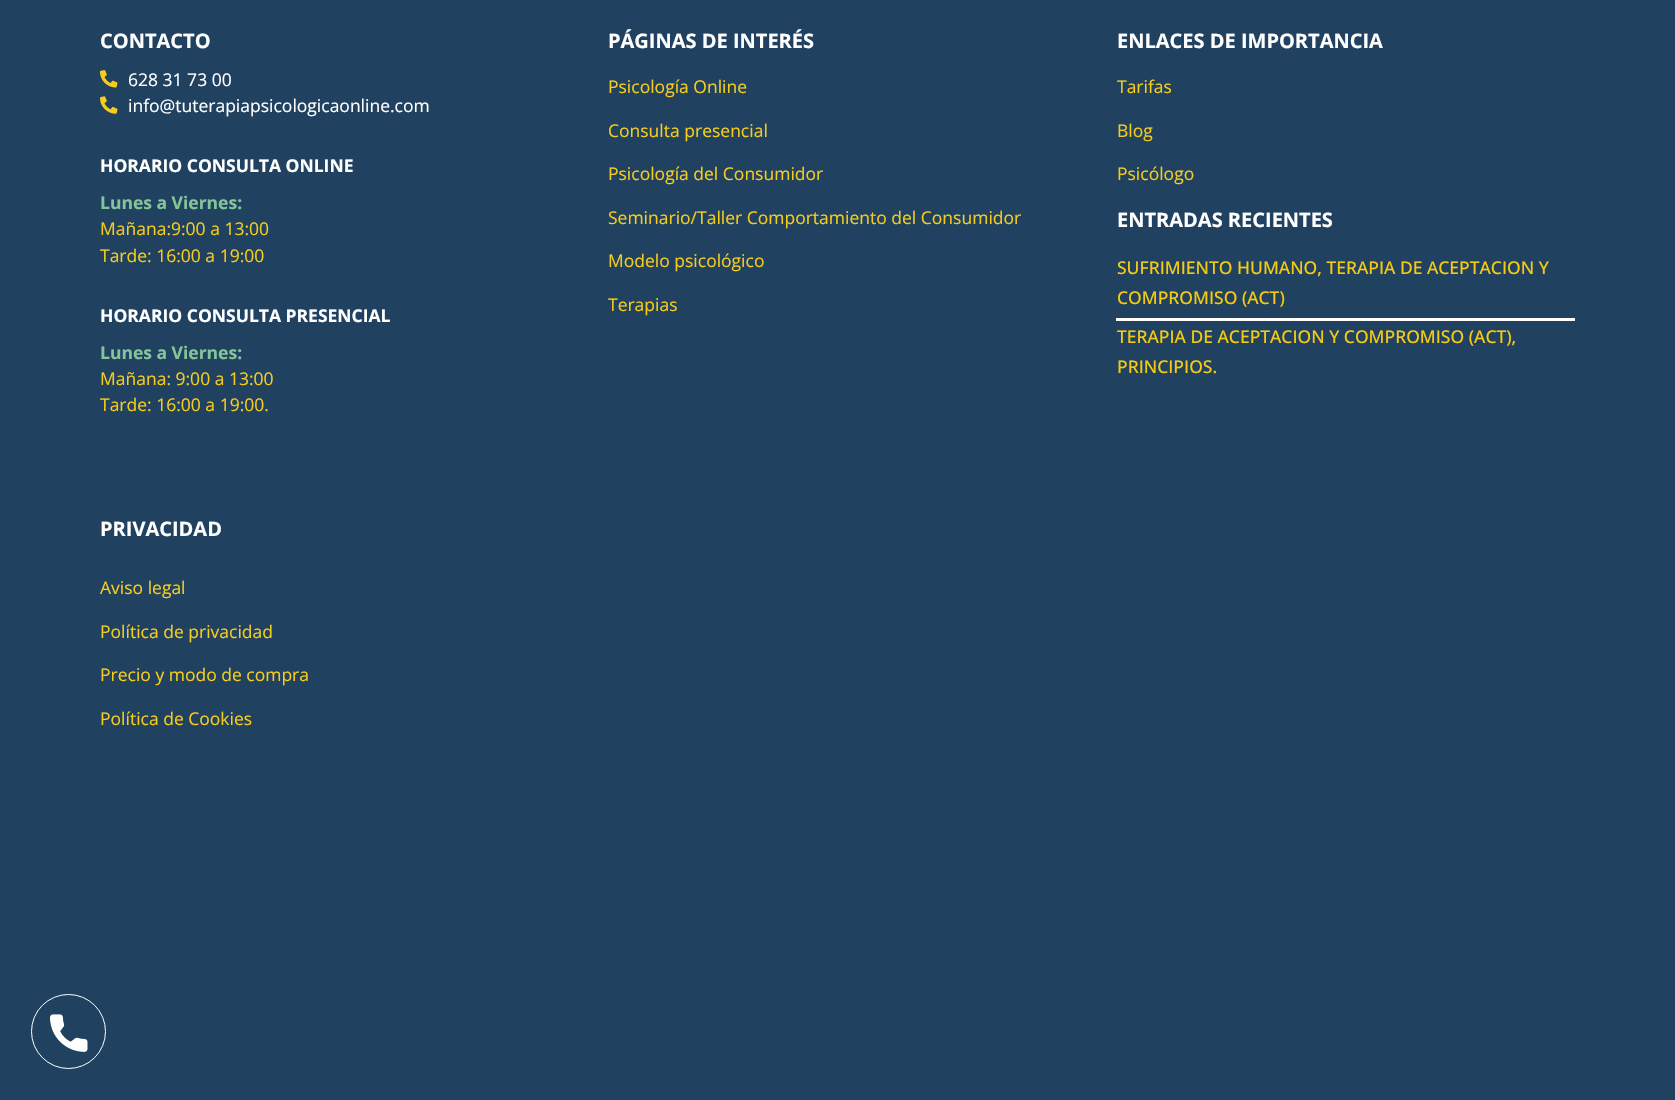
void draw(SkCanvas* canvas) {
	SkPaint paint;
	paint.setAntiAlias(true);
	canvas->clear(0xff20415f);
	SkFont f1(fontMgr->matchFamilyStyle("Open Sans", SkFontStyle::Bold()), 20);
	f1.setSubpixel(true);
	paint.setColor(0xffffffff);
	canvas->drawString("CONTACTO", 100, 48, f1, paint);
	canvas->drawImageRect(SkImages::DeferredFromEncodedData(SkData::MakeFromFileName("img1.png")), SkRect::MakeXYWH(100, 70, 18, 18), SkSamplingOptions());
	SkFont f2(fontMgr->matchFamilyStyle("Open Sans", SkFontStyle::Normal()), 17.5);
	f2.setSubpixel(true);
	canvas->drawString("628 31 73 00", 128, 86, f2, paint);
	canvas->drawImageRect(SkImages::DeferredFromEncodedData(SkData::MakeFromFileName("img2.png")), SkRect::MakeXYWH(100, 96, 18, 18), SkSamplingOptions());
	canvas->drawString("info@tuterapiapsicologicaonline.com", 128, 112, f2, paint);
	SkFont f3(fontMgr->matchFamilyStyle("Open Sans", SkFontStyle::Bold()), 17.5);
	f3.setSubpixel(true);
	canvas->drawString("HORARIO CONSULTA ONLINE", 100, 172, f3, paint);
	paint.setColor(0xff83c49a);
	canvas->drawString("Lunes a Viernes:", 100, 209, f3, paint);
	paint.setColor(0xfff6cd1d);
	canvas->drawString("Mañana:9:00 a 13:00", 100, 235, f2, paint);
	canvas->drawString("Tarde: 16:00 a 19:00", 100, 262, f2, paint);
	paint.setColor(0xffffffff);
	canvas->drawString("HORARIO CONSULTA PRESENCIAL", 100, 322, f3, paint);
	paint.setColor(0xff83c49a);
	canvas->drawString("Lunes a Viernes:", 100, 359, f3, paint);
	paint.setColor(0xfff6cd1d);
	canvas->drawString("Mañana: 9:00 a 13:00", 100, 385, f2, paint);
	canvas->drawString("Tarde: 16:00 a 19:00.", 100, 411, f2, paint);
	paint.setColor(0xffffffff);
	canvas->drawString("PÁGINAS DE INTERÉS", 608, 48, f1, paint);
	paint.setColor(0xfff6cd1d);
	canvas->drawString("Psicología Online", 608, 93, f2, paint);
	canvas->drawString("Consulta presencial", 608, 137, f2, paint);
	canvas->drawString("Psicología del Consumidor", 608, 180, f2, paint);
	canvas->drawString("Seminario/Taller Comportamiento del Consumidor", 608, 224, f2, paint);
	canvas->drawString("Modelo psicológico", 608, 267, f2, paint);
	canvas->drawString("Terapias", 608, 311, f2, paint);
	paint.setColor(0xffffffff);
	canvas->drawString("ENLACES DE IMPORTANCIA", 1117, 48, f1, paint);
	paint.setColor(0xfff6cd1d);
	canvas->drawString("Tarifas", 1117, 93, f2, paint);
	canvas->drawString("Blog", 1117, 137, f2, paint);
	canvas->drawString("Psicólogo", 1117, 180, f2, paint);
	paint.setColor(0xffffffff);
	canvas->drawString("ENTRADAS RECIENTES", 1117, 227, f1, paint);
	canvas->drawRect(SkRect::MakeXYWH(1116, 318, 459, 3), paint);
	SkFont f4(fontMgr->matchFamilyStyle("Open Sans", SkFontStyle(500, SkFontStyle::kNormal_Width, SkFontStyle::kUpright_Slant)), 17.5);
	f4.setSubpixel(true);
	paint.setColor(0xfff5cb12);
	canvas->drawString("SUFRIMIENTO HUMANO, TERAPIA DE ACEPTACION Y", 1117, 274, f4, paint);
	canvas->drawString("COMPROMISO (ACT)", 1117, 304, f4, paint);
	canvas->drawString("TERAPIA DE ACEPTACION Y COMPROMISO (ACT),", 1117, 343, f4, paint);
	canvas->drawString("PRINCIPIOS.", 1117, 373, f4, paint);
	paint.setColor(0xffffffff);
	canvas->drawString("PRIVACIDAD", 100, 536, f1, paint);
	paint.setColor(0xfff6cd1d);
	canvas->drawString("Aviso legal", 100, 594, f2, paint);
	canvas->drawString("Política de privacidad", 100, 638, f2, paint);
	canvas->drawString("Precio y modo de compra", 100, 681, f2, paint);
	canvas->drawString("Política de Cookies", 100, 725, f2, paint);
	paint.setStroke(true);
	paint.setStrokeWidth(1);
	paint.setColor(0xffffffff);
	canvas->drawCircle(68.5, 1031.5, 37, paint);
	canvas->drawImageRect(SkImages::DeferredFromEncodedData(SkData::MakeFromFileName("img3.png")), SkRect::MakeXYWH(50, 1014, 38, 38), SkSamplingOptions());
}
